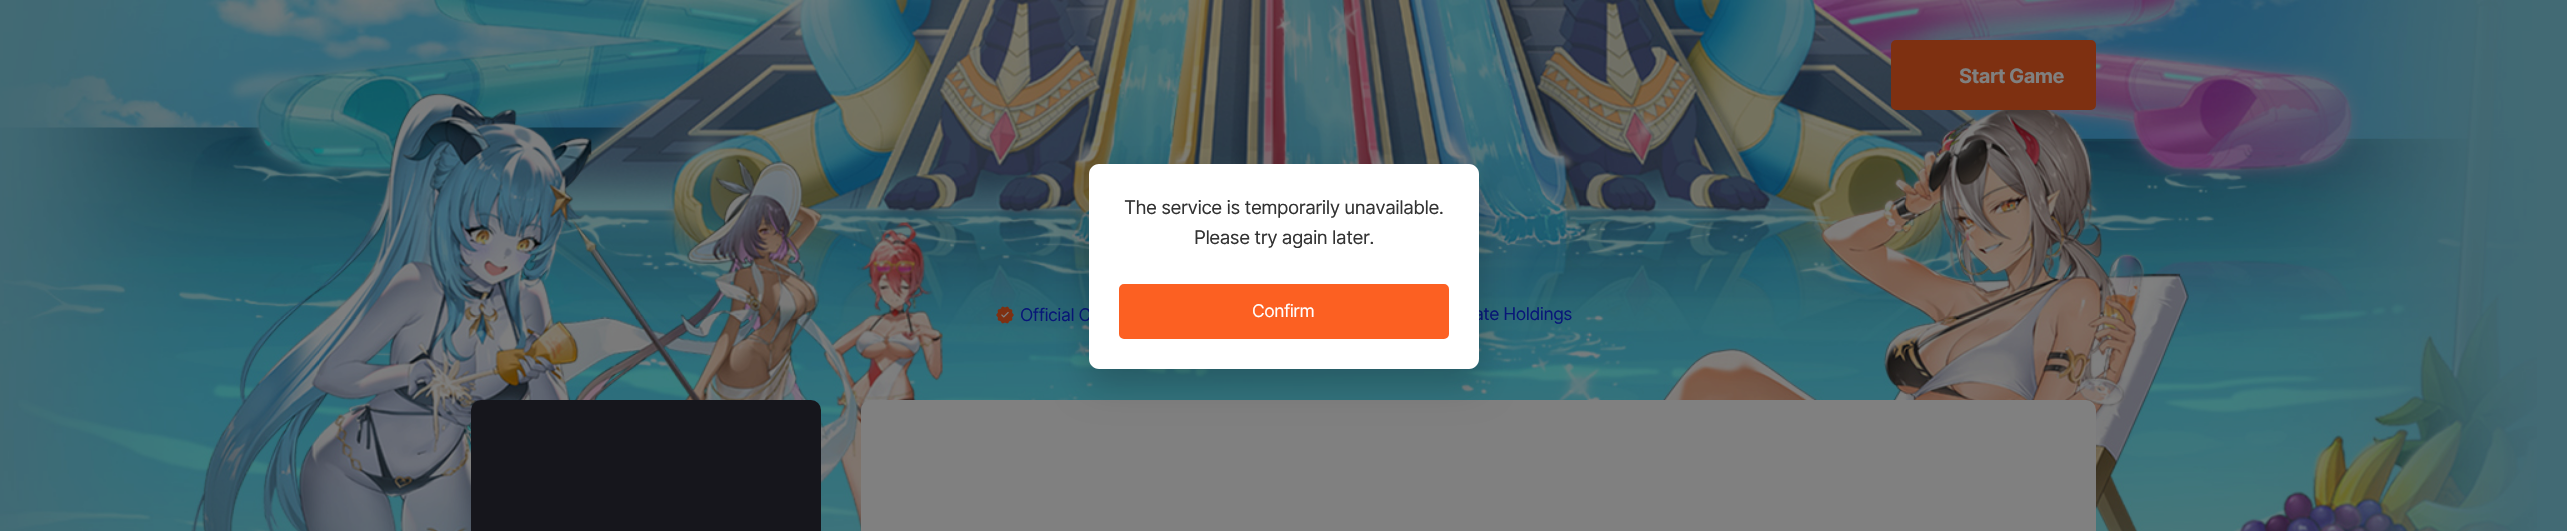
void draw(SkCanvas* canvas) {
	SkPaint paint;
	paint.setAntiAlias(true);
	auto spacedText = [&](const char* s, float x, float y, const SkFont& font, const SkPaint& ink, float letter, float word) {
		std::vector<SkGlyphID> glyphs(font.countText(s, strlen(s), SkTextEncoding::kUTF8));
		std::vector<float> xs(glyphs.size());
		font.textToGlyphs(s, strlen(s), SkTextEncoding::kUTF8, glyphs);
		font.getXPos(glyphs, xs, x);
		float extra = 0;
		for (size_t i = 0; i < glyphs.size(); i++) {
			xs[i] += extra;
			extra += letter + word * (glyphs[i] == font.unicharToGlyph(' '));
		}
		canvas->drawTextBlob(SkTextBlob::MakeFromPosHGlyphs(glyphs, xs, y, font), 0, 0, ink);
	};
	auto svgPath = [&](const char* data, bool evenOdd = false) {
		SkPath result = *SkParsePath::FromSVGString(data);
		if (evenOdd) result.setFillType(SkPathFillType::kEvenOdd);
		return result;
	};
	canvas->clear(0xff426a74);
	canvas->drawImageRect(SkImages::DeferredFromEncodedData(SkData::MakeFromFileName("img1.png")), SkRect::MakeXYWH(0, 0, 2537, 531), SkSamplingOptions());
	paint.setColor(0xff7e3011);
	canvas->drawRoundRect(SkRect::MakeXYWH(1892.5, 41.5, 202, 67), 3.5, 3.5, paint);
	paint.setStroke(true);
	paint.setStrokeWidth(3);
	canvas->drawRoundRect(SkRect::MakeXYWH(1892.5, 41.5, 202, 67), 3.5, 3.5, paint);
	SkFont f1(fontMgr->matchFamilyStyle("Inter", SkFontStyle::Bold()), 20);
	f1.setSubpixel(true);
	paint.setStroke(false);
	paint.setColor(0xff808080);
	spacedText("Start Game", 1959, 83, f1, paint, -0.5, 0);
	canvas->drawCircle(1005, 315, 5, paint);
	canvas->drawImageRect(SkImages::DeferredFromEncodedData(SkData::MakeFromFileName("img2.png")), SkRect::MakeXYWH(996, 306, 18, 18), SkSamplingOptions());
	SkFont f2(fontMgr->matchFamilyStyle("Inter", SkFontStyle::Normal()), 17.5);
	f2.setSubpixel(true);
	paint.setColor(0xff081778);
	spacedText("Official C", 1020, 321, f2, paint, -0.5, 0);
	spacedText("ate Holdings", 1474, 320, f2, paint, -0.5, 0);
	paint.setColor(0xff16161c);
	canvas->drawRoundRect(SkRect::MakeXYWH(471, 400, 350, 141), 10, 10, paint);
	paint.setColor(0xff808080);
	canvas->drawRoundRect(SkRect::MakeXYWH(861, 400, 1235, 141), 10, 10, paint);
	paint.setColor(0x33000000);
	paint.setMaskFilter(SkMaskFilter::MakeBlur(kNormal_SkBlurStyle, 17.5));
	canvas->drawRoundRect(SkRect::MakeXYWH(1089, 179, 390, 205), 10, 10, paint);
	paint.setMaskFilter(nullptr);
	paint.setColor(0xffffffff);
	canvas->drawPath(svgPath("M1099 164H1469C1474.5 164 1479 168.5 1479 174V284H1089V174C1089 168.5 1093.5 164 1099 164Z"), paint);
	SkFont f3(fontMgr->matchFamilyStyle("Inter", SkFontStyle::Normal()), 18.75);
	f3.setSubpixel(true);
	paint.setColor(0xff333333);
	spacedText("The service is temporarily unavailable.", 1124, 214, f3, paint, -0.5, 0);
	spacedText("Please try again later.", 1194, 244, f3, paint, -0.5, 0);
	paint.setColor(0xffffffff);
	canvas->drawPath(svgPath("M1089 264H1479V359C1479 364.5 1474.5 369 1469 369H1099C1093.5 369 1089 364.5 1089 359Z"), paint);
	paint.setColor(0xfffc6022);
	canvas->drawRoundRect(SkRect::MakeXYWH(1120.5, 285.5, 327, 52), 3.5, 3.5, paint);
	paint.setStroke(true);
	canvas->drawRoundRect(SkRect::MakeXYWH(1120.5, 285.5, 327, 52), 3.5, 3.5, paint);
	paint.setStroke(false);
	paint.setColor(0xffffffff);
	spacedText("Confirm", 1252, 317, f2, paint, -0.5, 0);
}
